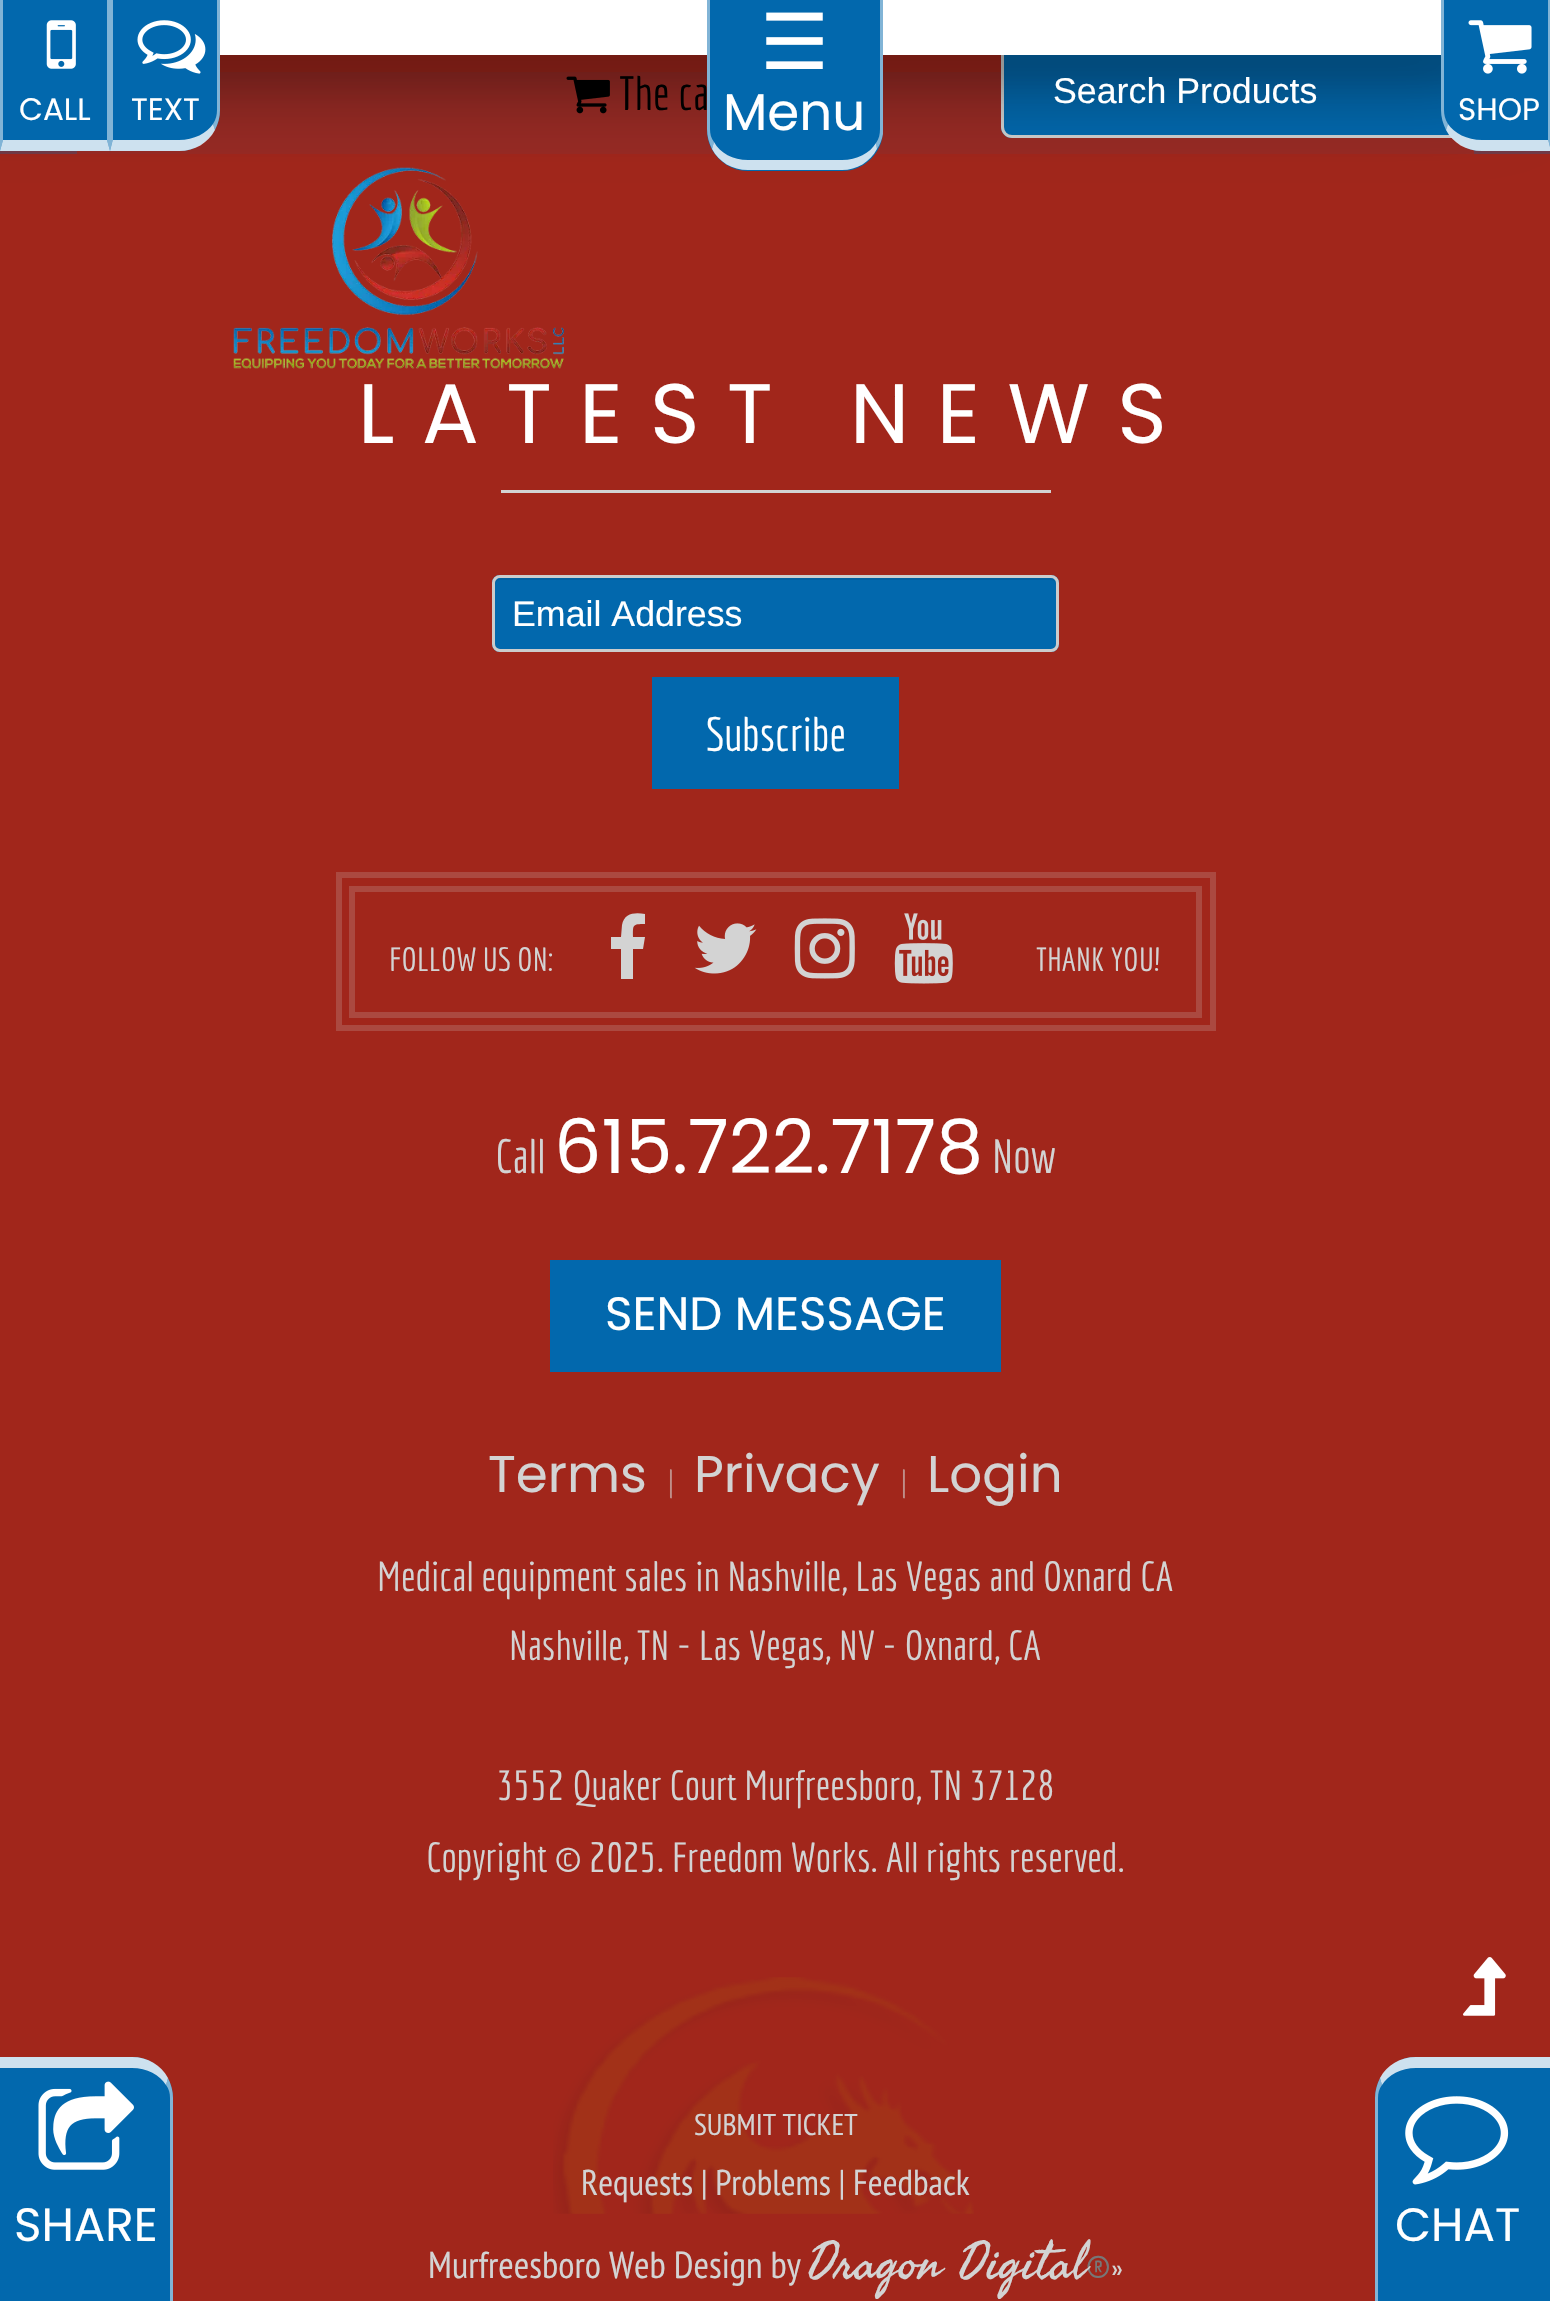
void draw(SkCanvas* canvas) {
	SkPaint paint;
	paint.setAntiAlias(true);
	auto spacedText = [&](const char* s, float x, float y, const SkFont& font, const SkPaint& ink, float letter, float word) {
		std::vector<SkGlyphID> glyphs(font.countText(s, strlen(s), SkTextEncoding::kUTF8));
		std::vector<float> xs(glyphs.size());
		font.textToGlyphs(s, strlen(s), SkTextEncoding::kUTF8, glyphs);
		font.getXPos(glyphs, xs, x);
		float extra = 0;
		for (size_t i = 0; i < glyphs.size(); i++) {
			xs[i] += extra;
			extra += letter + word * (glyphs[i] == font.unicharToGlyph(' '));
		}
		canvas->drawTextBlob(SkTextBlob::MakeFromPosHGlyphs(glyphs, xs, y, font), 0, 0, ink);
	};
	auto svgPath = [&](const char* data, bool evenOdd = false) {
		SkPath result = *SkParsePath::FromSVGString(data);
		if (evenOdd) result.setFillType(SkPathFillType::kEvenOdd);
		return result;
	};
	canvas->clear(0xffa1261b);
	paint.setColor(0xff713a47);
	canvas->drawRect(SkRect::MakeXYWH(0, 150, 1550, 4), paint);
	paint.setColor(0xff972a24);
	canvas->drawRect(SkRect::MakeXYWH(77, 72, 1397, 82), paint);
	canvas->drawImageRect(SkImages::DeferredFromEncodedData(SkData::MakeFromFileName("img4.png")), SkRect::MakeXYWH(566, 76, 44, 38), SkSamplingOptions());
	paint.setColor(0xff0268ad);
	canvas->drawRoundRect(SkRect::MakeXYWH(1001, 44, 495, 94), 11, 11, paint);
	paint.setColor(0xff0260a0);
	canvas->drawPath(svgPath("M1012 50H1485C1490 50 1493 53 1493 58V55C1493 51 1489 47 1485 47H1012C1008 47 1004 51 1004 55V58C1004 53 1007 50 1012 50Z"), paint);
	paint.setStroke(true);
	paint.setStrokeWidth(3);
	paint.setColor(0xffcecece);
	canvas->drawRoundRect(SkRect::MakeXYWH(1002.5, 45.5, 492, 91), 9.5, 9.5, paint);
	canvas->drawImageRect(SkImages::DeferredFromEncodedData(SkData::MakeFromFileName("img5.png")), SkRect::MakeXYWH(233, 167, 331, 202), SkSamplingOptions());
	paint.setStroke(false);
	paint.setColor(0x66000000);
	paint.setMaskFilter(SkMaskFilter::MakeBlur(kNormal_SkBlurStyle, 41));
	canvas->drawRect(SkRect::MakeXYWH(-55, 30, 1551, 55), paint);
	paint.setMaskFilter(nullptr);
	paint.setColor(0x1a000000);
	paint.setMaskFilter(SkMaskFilter::MakeBlur(kNormal_SkBlurStyle, 14));
	canvas->drawRect(SkRect::MakeXYWH(-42, 30, 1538, 55), paint);
	paint.setMaskFilter(nullptr);
	paint.setColor(0xffffffff);
	canvas->drawRect(SkRect::MakeXYWH(220, 0, 1221, 55), paint);
	paint.setColor(0xff0268ad);
	canvas->drawRect(SkRect::MakeXYWH(0, 0, 110, 151), paint);
	paint.setColor(0xff81b4d6);
	canvas->drawPath(svgPath("M110 0V151L107 140V0Z"), paint);
	paint.setColor(0xccffffff);
	canvas->drawPath(svgPath("M110 151H0L3 140H107Z"), paint);
	paint.setColor(0x80ffffff);
	canvas->drawPath(svgPath("M0 151V0H3V140Z"), paint);
	canvas->drawImageRect(SkImages::DeferredFromEncodedData(SkData::MakeFromFileName("img1.png")), SkRect::MakeXYWH(46, 20, 30, 49), SkSamplingOptions());
	SkFont f1(fontMgr->matchFamilyStyle("Poppins", SkFontStyle::Normal()), 31);
	f1.setSubpixel(true);
	paint.setColor(0xffffffff);
	canvas->drawString("CALL", 19, 120, f1, paint);
	paint.setColor(0xff0268ad);
	canvas->drawPath(svgPath("M110 0H220V110C220 132.5 201.5 151 179 151H110Z"), paint);
	paint.setColor(0x80ffffff);
	canvas->drawPath(svgPath("M220 0H217V110C217 115 216 119 213 124L215 130C218 124 220 117 220 110Z"), paint);
	paint.setColor(0xccffffff);
	canvas->drawPath(svgPath("M215 130C208 143 195 151 179 151H110L113 139V140H179C194 140 207 133 213 124Z"), paint);
	paint.setColor(0x80ffffff);
	canvas->drawPath(svgPath("M110 0H113V139L110 151Z"), paint);
	canvas->drawImageRect(SkImages::DeferredFromEncodedData(SkData::MakeFromFileName("img2.png")), SkRect::MakeXYWH(137, 20, 69, 54), SkSamplingOptions());
	paint.setColor(0xffffffff);
	canvas->drawString("TEXT", 131, 120, f1, paint);
	paint.setColor(0xff0268ad);
	canvas->drawPath(svgPath("M707 0H883V130C883 152.5 864.5 171 842 171H748C725.5 171 707 152.5 707 130Z"), paint);
	paint.setColor(0x80ffffff);
	canvas->drawPath(svgPath("M883 0V134C882 139 880 145 877 149L876 143C879 139 880 134 880 129V0Z"), paint);
	paint.setColor(0xccffffff);
	canvas->drawPath(svgPath("M877 149C870 162 857 170 842 170H748C732 170 719 162 712 149L714 142C720 153 733 160 748 160H842C857 160 870 153 876 143Z"), paint);
	paint.setColor(0x80ffffff);
	canvas->drawPath(svgPath("M707 0H710V129C710 134 711 138 714 142L712 149C709 143 707 136 707 129Z"), paint);
	SkFont f2(fontMgr->matchFamilyStyle("DejaVu Sans", SkFontStyle::Normal()), 77);
	f2.setSubpixel(true);
	paint.setColor(0xffffffff);
	canvas->drawString("☰", 760, 69, f2, paint);
	SkFont f3(fontMgr->matchFamilyStyle("Poppins", SkFontStyle::Normal()), 51.5);
	f3.setSubpixel(true);
	canvas->drawString("Menu", 723, 130, f3, paint);
	paint.setColor(0xff0268ad);
	canvas->drawPath(svgPath("M1441 0H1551V151H1482C1459.5 151 1441 132.5 1441 110Z"), paint);
	paint.setColor(0xff81b4d6);
	canvas->drawPath(svgPath("M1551 0H1548V139L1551 151Z"), paint);
	paint.setColor(0xccffffff);
	canvas->drawPath(svgPath("M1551 151H1482C1466 151 1453 143 1446 130L1448 124C1454 133 1467 140 1482 140H1548V139Z"), paint);
	paint.setColor(0x80ffffff);
	canvas->drawPath(svgPath("M1441 0H1444V110C1444 115 1445 119 1448 124L1446 130C1443 124 1441 117 1441 110Z"), paint);
	canvas->drawImageRect(SkImages::DeferredFromEncodedData(SkData::MakeFromFileName("img3.png")), SkRect::MakeXYWH(1468, 20, 64, 54), SkSamplingOptions());
	paint.setColor(0xffffffff);
	canvas->drawString("SHOP", 1458, 120, f1, paint);
	SkFont f4(fontMgr->matchFamilyStyle("Economica", SkFontStyle::Normal()), 46.75);
	f4.setSubpixel(true);
	paint.setColor(0xff000000);
	canvas->drawString("The ca", 619, 110, f4, paint);
	SkFont f5(fontMgr->matchFamilyStyle("Liberation Sans", SkFontStyle::Normal()), 35.75);
	f5.setSubpixel(true);
	paint.setColor(0xffffffff);
	canvas->drawString("Search Products", 1053, 103, f5, paint);
	SkFont f6(fontMgr->matchFamilyStyle("Poppins", SkFontStyle::Normal()), 84.25);
	f6.setSubpixel(true);
	spacedText("LATEST NEWS", 358, 443, f6, paint, 27.5, 0);
	paint.setColor(0xffd3d3d3);
	canvas->drawRect(SkRect::MakeXYWH(501, 490, 550, 3), paint);
	paint.setColor(0xff0268ad);
	canvas->drawRoundRect(SkRect::MakeXYWH(492, 575, 567, 77), 8, 8, paint);
	paint.setColor(0xff0260a0);
	canvas->drawPath(svgPath("M500 580H1050C1054 580 1056 583 1056 586V584C1056 581 1053 578 1050 578H501C498 578 495 581 495 584V586C495 583 497 580 500 580Z"), paint);
	paint.setStroke(true);
	paint.setColor(0xffcccccc);
	canvas->drawRoundRect(SkRect::MakeXYWH(493.5, 576.5, 564, 74), 6.5, 6.5, paint);
	paint.setStroke(false);
	paint.setColor(0xffffffff);
	canvas->drawString("Email Address", 512, 626, f5, paint);
	paint.setColor(0xff0268ad);
	canvas->drawRect(SkRect::MakeXYWH(652, 677, 247, 112), paint);
	paint.setColor(0xffffffff);
	canvas->drawString("Subscribe", 706, 751, f4, paint);
	paint.setStroke(true);
	paint.setStrokeWidth(6);
	paint.setColor(0xffab4940);
	canvas->drawRect(SkRect::MakeXYWH(339, 875, 874, 153), paint);
	canvas->drawRect(SkRect::MakeXYWH(352, 889, 847, 126), paint);
	SkFont f7(fontMgr->matchFamilyStyle("Economica", SkFontStyle::Normal()), 32.75);
	f7.setSubpixel(true);
	paint.setStroke(false);
	paint.setColor(0xffd3d3d3);
	canvas->drawString("FOLLOW US ON:", 389, 971, f7, paint);
	canvas->drawPath(svgPath("M645 914V924C632 924 633 925 633 937H645L643 949H633V979H621V949H611V937H621L622 925C624 913 635 912 645 914Z"), paint);
	canvas->drawImageRect(SkImages::DeferredFromEncodedData(SkData::MakeFromFileName("img6.png")), SkRect::MakeXYWH(694, 923, 63, 51), SkSamplingOptions());
	canvas->drawImageRect(SkImages::DeferredFromEncodedData(SkData::MakeFromFileName("img7.png")), SkRect::MakeXYWH(794, 918, 61, 61), SkSamplingOptions());
	canvas->drawImageRect(SkImages::DeferredFromEncodedData(SkData::MakeFromFileName("img8.png")), SkRect::MakeXYWH(894, 913, 59, 71), SkSamplingOptions());
	canvas->drawString("THANK YOU!", 1036, 971, f7, paint);
	canvas->drawString("Call", 495, 1173, f4, paint);
	SkFont f8(fontMgr->matchFamilyStyle("Poppins", SkFontStyle::Normal()), 74.75);
	f8.setSubpixel(true);
	paint.setColor(0xffffffff);
	canvas->drawString("615.722.7178", 554, 1173, f8, paint);
	paint.setColor(0xffd3d3d3);
	canvas->drawString("Now", 992, 1173, f4, paint);
	paint.setColor(0xff0268ad);
	canvas->drawRect(SkRect::MakeXYWH(550, 1260, 451, 112), paint);
	SkFont f9(fontMgr->matchFamilyStyle("Poppins", SkFontStyle::Normal()), 46.75);
	f9.setSubpixel(true);
	paint.setColor(0xffffffff);
	canvas->drawString("SEND MESSAGE", 605, 1330, f9, paint);
	paint.setColor(0xffd3d3d3);
	canvas->drawString("Terms", 488, 1492, f3, paint);
	SkFont f10(fontMgr->matchFamilyStyle("Economica", SkFontStyle::Normal()), 31);
	f10.setSubpixel(true);
	paint.setColor(0xffbf8e89);
	canvas->drawString("|", 668, 1492, f10, paint);
	paint.setColor(0xffd3d3d3);
	canvas->drawString("Privacy", 694, 1492, f3, paint);
	paint.setColor(0xffbf8e89);
	canvas->drawString("|", 901, 1492, f10, paint);
	paint.setColor(0xffd3d3d3);
	canvas->drawString("Login", 927, 1492, f3, paint);
	SkFont f11(fontMgr->matchFamilyStyle("Economica", SkFontStyle::Normal()), 41.1);
	f11.setSubpixel(true);
	canvas->drawString("Medical equipment sales in Nashville, Las Vegas and Oxnard CA", 377, 1591, f11, paint);
	canvas->drawString("Nashville, TN - Las Vegas, NV - Oxnard, CA", 509, 1660, f11, paint);
	canvas->drawString("3552 Quaker Court Murfreesboro, TN 37128", 497, 1800, f11, paint);
	canvas->drawString("Copyright © 2025. Freedom Works. All rights reserved.", 426, 1872, f11, paint);
	canvas->drawImageRect(SkImages::DeferredFromEncodedData(SkData::MakeFromFileName("img9.png")), SkRect::MakeXYWH(1463, 1957, 43, 59), SkSamplingOptions());
	paint.setColor(0xff0268ad);
	canvas->drawPath(svgPath("M0 2057H132C154.5 2057 173 2075.5 173 2098V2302H0Z"), paint);
	paint.setColor(0xccffffff);
	canvas->drawPath(svgPath("M0 2057V2068H132C147 2068 160 2075 166 2085L168 2078C161 2065 148 2057 132 2057Z"), paint);
	paint.setColor(0x80ffffff);
	canvas->drawPath(svgPath("M170 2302V2098C170 2093 169 2089 166 2085L168 2078C171 2084 173 2091 173 2098V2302Z"), paint);
	canvas->drawImageRect(SkImages::DeferredFromEncodedData(SkData::MakeFromFileName("img10.png")), SkRect::MakeXYWH(38, 2081, 96, 89), SkSamplingOptions());
	paint.setColor(0xffffffff);
	canvas->drawString("SHARE", 14, 2241, f9, paint);
	canvas->drawImageRect(SkImages::DeferredFromEncodedData(SkData::MakeFromFileName("img11.png")), SkRect::MakeXYWH(553, 1977, 421, 237), SkSamplingOptions());
	SkFont f12(fontMgr->matchFamilyStyle("PT Sans Narrow", SkFontStyle::Normal()), 30);
	f12.setSubpixel(true);
	paint.setColor(0xffd3d3d3);
	canvas->drawString("SUBMIT TICKET", 694, 2135, f12, paint);
	SkFont f13(fontMgr->matchFamilyStyle("PT Sans Narrow", SkFontStyle::Normal()), 35.9);
	f13.setSubpixel(true);
	canvas->drawString("Requests | Problems | Feedback", 581, 2195, f13, paint);
	SkFont f14(fontMgr->matchFamilyStyle("PT Sans Narrow", SkFontStyle::Normal()), 37.5);
	f14.setSubpixel(true);
	canvas->drawString("Murfreesboro Web Design by", 428, 2278, f14, paint);
	SkFont f15(fontMgr->matchFamilyStyle("Economica", SkFontStyle::Normal()), 37.5);
	f15.setSubpixel(true);
	paint.setColor(0xff777777);
	canvas->drawString("®", 1086, 2278, f15, paint);
	SkFont f16(fontMgr->matchFamilyStyle("Seaweed Script", SkFontStyle::Normal()), 52.5);
	f16.setSubpixel(true);
	paint.setColor(0xffd3d3d3);
	canvas->drawString("Dragon Digital", 807, 2278, f16, paint);
	SkFont f17(fontMgr->matchFamilyStyle("Poppins", SkFontStyle::Normal()), 26);
	f17.setSubpixel(true);
	canvas->drawString("»", 1111, 2278, f17, paint);
	paint.setColor(0xff0268ad);
	canvas->drawPath(svgPath("M1416 2057H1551V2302H1375V2098C1375 2075.5 1393.5 2057 1416 2057Z"), paint);
	paint.setColor(0xccffffff);
	canvas->drawPath(svgPath("M1416 2057C1400 2057 1387 2065 1380 2078L1382 2085C1388 2075 1401 2068 1416 2068H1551V2057Z"), paint);
	paint.setColor(0x80ffffff);
	canvas->drawPath(svgPath("M1375 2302H1378V2098C1378 2093 1379 2089 1382 2085L1380 2078C1377 2084 1375 2091 1375 2098Z"), paint);
	canvas->drawImageRect(SkImages::DeferredFromEncodedData(SkData::MakeFromFileName("img12.png")), SkRect::MakeXYWH(1405, 2096, 104, 89), SkSamplingOptions());
	paint.setColor(0xffffffff);
	canvas->drawString("CHAT", 1395, 2241, f9, paint);
}
